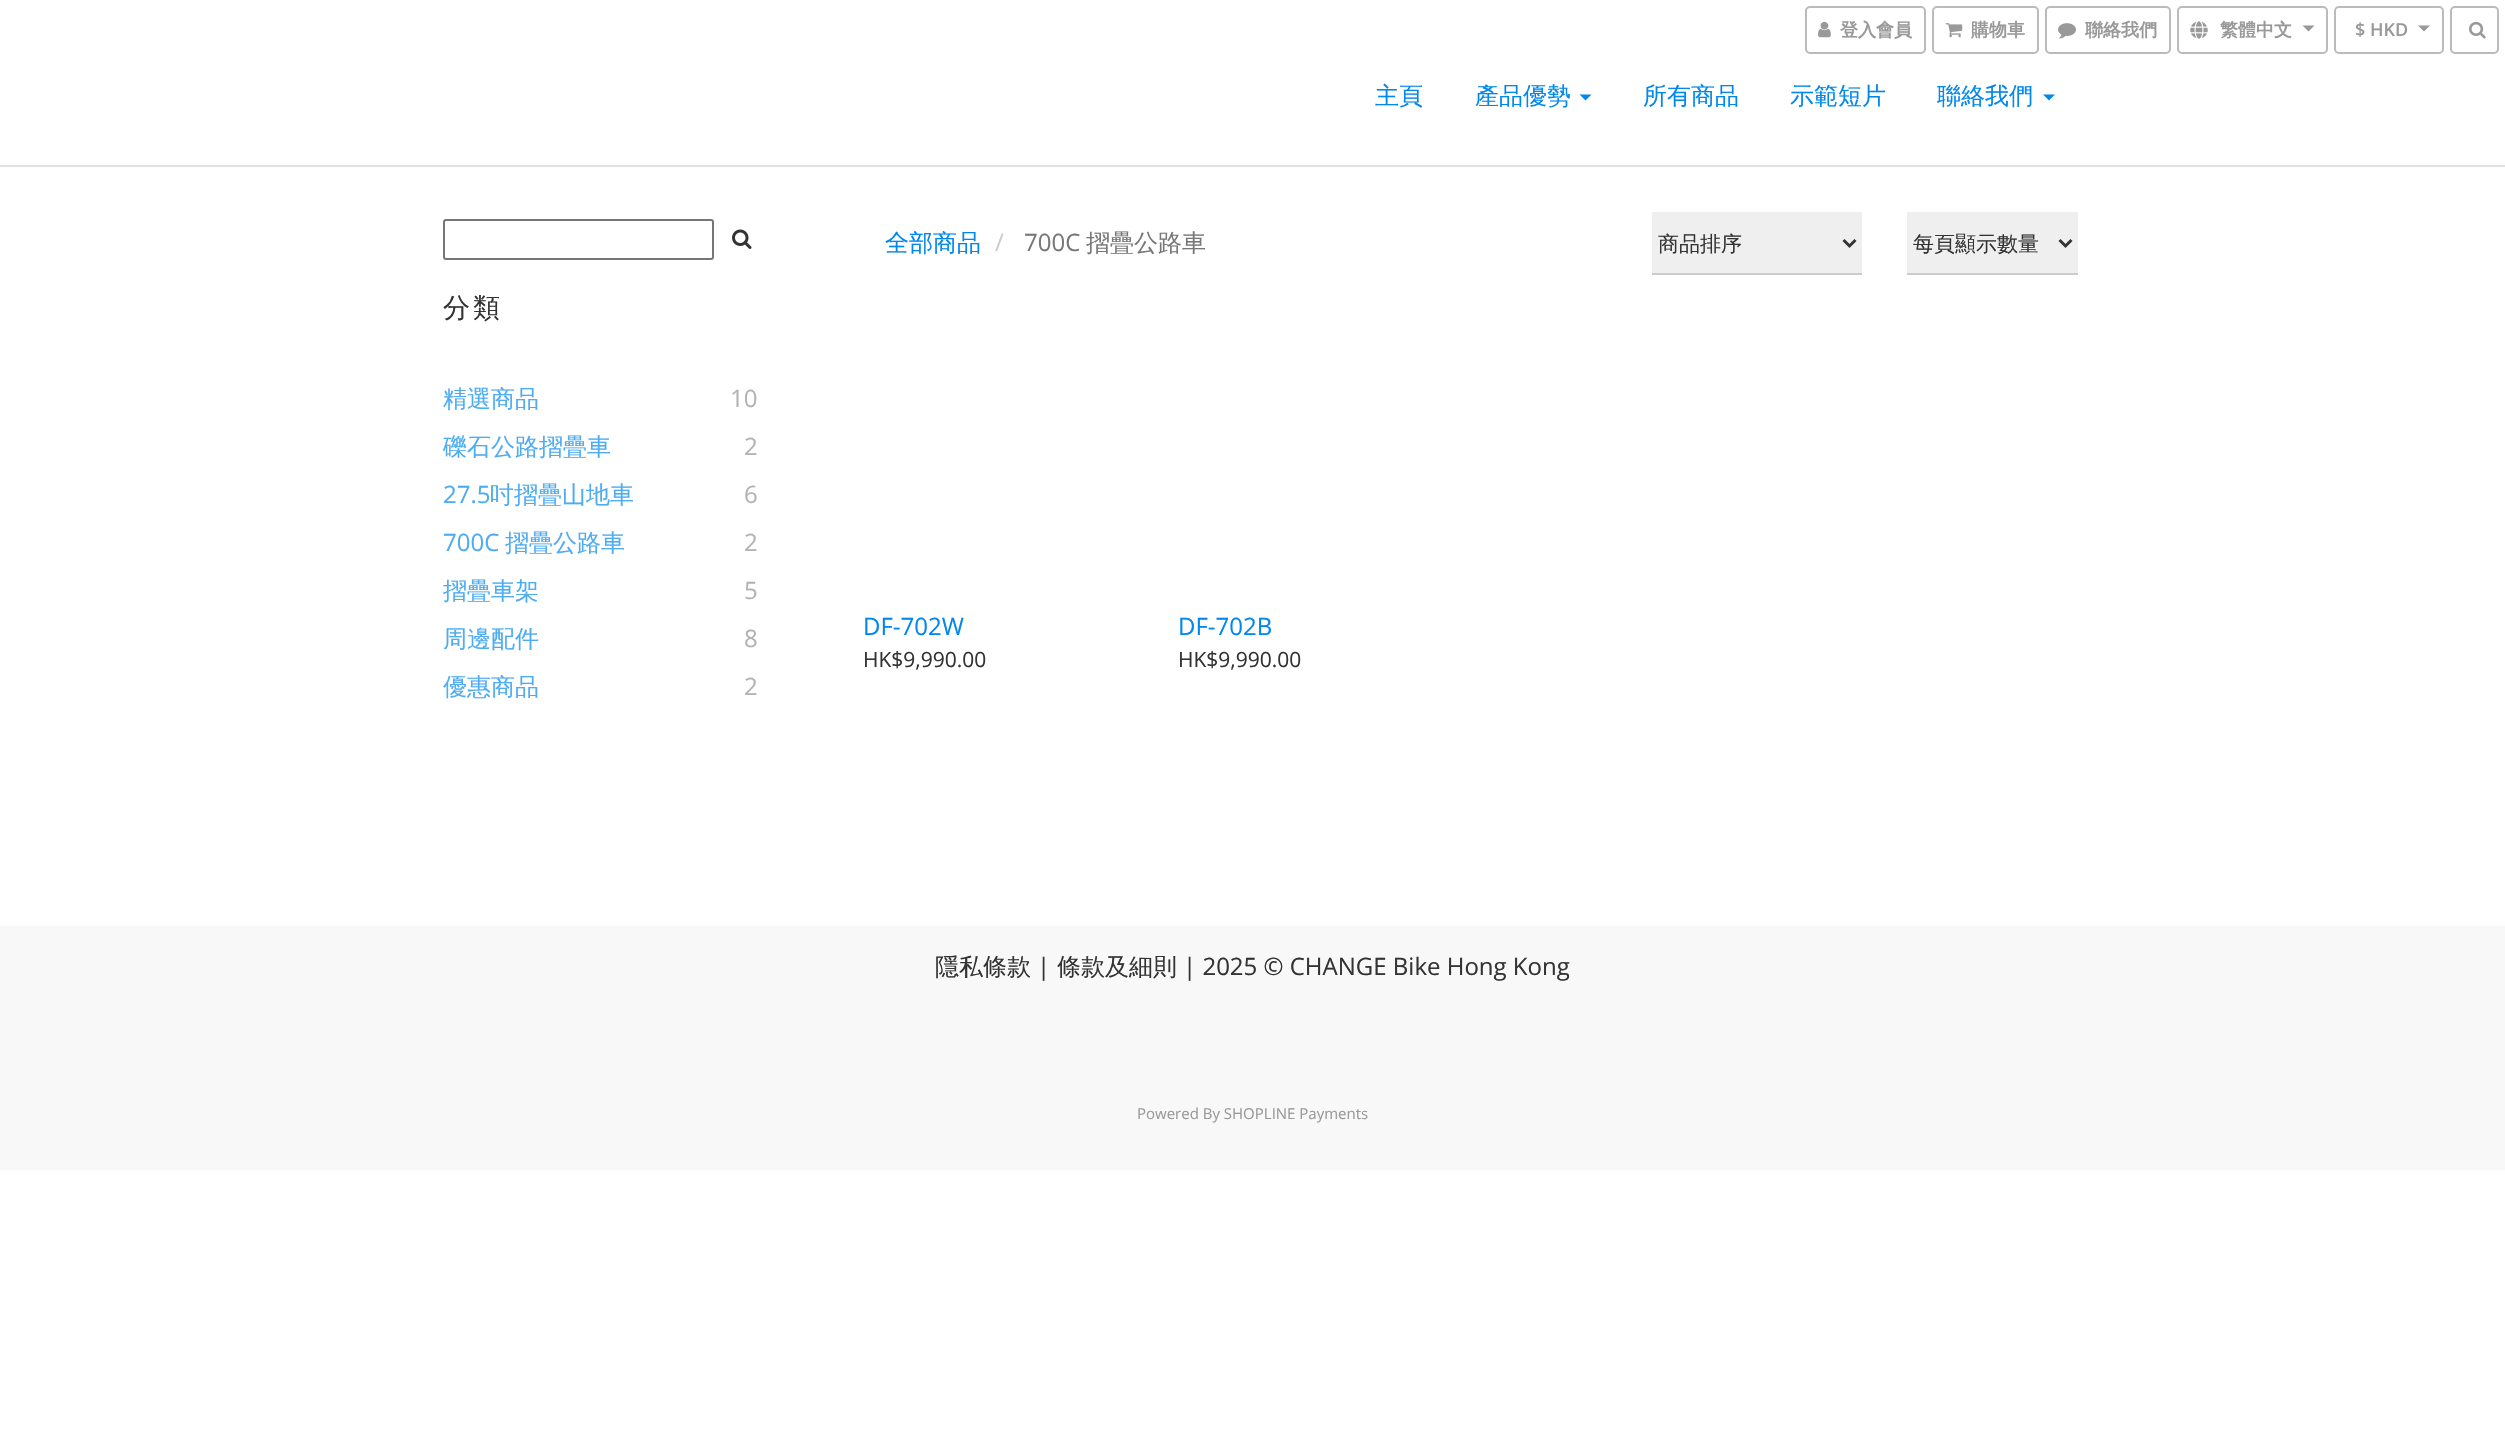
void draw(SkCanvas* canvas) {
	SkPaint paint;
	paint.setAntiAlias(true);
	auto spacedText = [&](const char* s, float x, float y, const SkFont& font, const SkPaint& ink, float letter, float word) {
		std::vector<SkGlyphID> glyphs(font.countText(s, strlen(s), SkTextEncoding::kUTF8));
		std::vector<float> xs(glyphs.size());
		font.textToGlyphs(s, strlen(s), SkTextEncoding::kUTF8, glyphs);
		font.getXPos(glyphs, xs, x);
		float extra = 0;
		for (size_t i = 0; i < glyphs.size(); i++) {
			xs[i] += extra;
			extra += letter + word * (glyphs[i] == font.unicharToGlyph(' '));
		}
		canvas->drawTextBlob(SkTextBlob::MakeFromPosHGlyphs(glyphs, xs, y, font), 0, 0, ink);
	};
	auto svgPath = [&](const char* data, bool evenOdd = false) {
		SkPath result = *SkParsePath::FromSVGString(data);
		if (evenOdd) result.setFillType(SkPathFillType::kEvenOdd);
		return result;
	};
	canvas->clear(0xffffffff);
	paint.setStroke(true);
	paint.setStrokeWidth(2);
	paint.setColor(0xffbbbbbb);
	canvas->drawRoundRect(SkRect::MakeXYWH(1806, 7, 119, 46), 4, 4, paint);
	canvas->drawImageRect(SkImages::DeferredFromEncodedData(SkData::MakeFromFileName("img1.png")), SkRect::MakeXYWH(1818, 21, 13, 17), SkSamplingOptions());
	SkFont f1(fontMgr->matchFamilyStyle("WenQuanYi Zen Hei", SkFontStyle::Bold()), 18);
	f1.setSubpixel(true);
	paint.setStroke(false);
	paint.setColor(0xff999999);
	canvas->drawString("登入會員", 1840, 36, f1, paint);
	paint.setStroke(true);
	paint.setColor(0xffbbbbbb);
	canvas->drawRoundRect(SkRect::MakeXYWH(1933, 7, 105, 46), 4, 4, paint);
	canvas->drawImageRect(SkImages::DeferredFromEncodedData(SkData::MakeFromFileName("img2.png")), SkRect::MakeXYWH(1945, 23, 18, 15), SkSamplingOptions());
	paint.setStroke(false);
	paint.setColor(0xff999999);
	canvas->drawString("購物車", 1971, 36, f1, paint);
	paint.setStroke(true);
	paint.setColor(0xffbbbbbb);
	canvas->drawRoundRect(SkRect::MakeXYWH(2046, 7, 124, 46), 4, 4, paint);
	canvas->drawImageRect(SkImages::DeferredFromEncodedData(SkData::MakeFromFileName("img3.png")), SkRect::MakeXYWH(2058, 23, 18, 16), SkSamplingOptions());
	paint.setStroke(false);
	paint.setColor(0xff999999);
	canvas->drawString("聯絡我們", 2085, 36, f1, paint);
	paint.setStroke(true);
	paint.setColor(0xffbbbbbb);
	canvas->drawRoundRect(SkRect::MakeXYWH(2178, 7, 149, 46), 4, 4, paint);
	canvas->drawImageRect(SkImages::DeferredFromEncodedData(SkData::MakeFromFileName("img4.png")), SkRect::MakeXYWH(2190, 21, 18, 18), SkSamplingOptions());
	paint.setStroke(false);
	paint.setColor(0xff999999);
	canvas->drawString("繁體中文", 2220, 36, f1, paint);
	canvas->drawPath(svgPath("M2302.5 25.5H2314.5L2308.5 31.5Z"), paint);
	paint.setStroke(true);
	paint.setColor(0xffbbbbbb);
	canvas->drawRoundRect(SkRect::MakeXYWH(2335, 7, 108, 46), 4, 4, paint);
	SkFont f2(fontMgr->matchFamilyStyle("Open Sans", SkFontStyle(600, SkFontStyle::kNormal_Width, SkFontStyle::kUpright_Slant)), 18);
	f2.setSubpixel(true);
	paint.setStroke(false);
	paint.setColor(0xff999999);
	canvas->drawString("$ HKD", 2355, 36, f2, paint);
	canvas->drawPath(svgPath("M2418 25.5H2430L2424 31.5Z"), paint);
	paint.setStroke(true);
	paint.setColor(0xffbbbbbb);
	canvas->drawRoundRect(SkRect::MakeXYWH(2451, 7, 47, 46), 4, 4, paint);
	canvas->drawImageRect(SkImages::DeferredFromEncodedData(SkData::MakeFromFileName("img5.png")), SkRect::MakeXYWH(2469, 21, 17, 18), SkSamplingOptions());
	paint.setStroke(false);
	paint.setColor(0xffe0e0e0);
	canvas->drawRect(SkRect::MakeXYWH(0, 165, 2505, 2), paint);
	SkFont f3(fontMgr->matchFamilyStyle("WenQuanYi Zen Hei", SkFontStyle(500, SkFontStyle::kNormal_Width, SkFontStyle::kUpright_Slant)), 24);
	f3.setSubpixel(true);
	paint.setColor(0xff0088ed);
	canvas->drawString("主頁", 1375, 104, f3, paint);
	canvas->drawString("產品優勢", 1475, 104, f3, paint);
	canvas->drawPath(svgPath("M1579.5 94.5H1591.5L1585.5 100.5Z"), paint);
	canvas->drawString("所有商品", 1643, 104, f3, paint);
	canvas->drawString("示範短片", 1790, 104, f3, paint);
	canvas->drawString("聯絡我們", 1937, 104, f3, paint);
	canvas->drawPath(svgPath("M2043 94.5H2055L2049 100.5Z"), paint);
	paint.setStroke(true);
	paint.setColor(0xff767676);
	canvas->drawRoundRect(SkRect::MakeXYWH(444, 220, 269, 39), 2, 2, paint);
	canvas->drawImageRect(SkImages::DeferredFromEncodedData(SkData::MakeFromFileName("img6.png")), SkRect::MakeXYWH(732, 229, 20, 20), SkSamplingOptions());
	SkFont f4(fontMgr->matchFamilyStyle("WenQuanYi Zen Hei", SkFontStyle(500, SkFontStyle::kNormal_Width, SkFontStyle::kUpright_Slant)), 27);
	f4.setSubpixel(true);
	paint.setStroke(false);
	paint.setColor(0xff333333);
	spacedText("分類", 443, 317, f4, paint, 3, 0);
	paint.setColor(0xff4dacf2);
	canvas->drawString("精選商品", 443, 407, f3, paint);
	SkFont f5(fontMgr->matchFamilyStyle("Open Sans", SkFontStyle::Normal()), 24);
	f5.setSubpixel(true);
	paint.setColor(0xffb3b3b3);
	canvas->drawString("10", 730, 407, f5, paint);
	paint.setColor(0xff4dacf2);
	canvas->drawString("礫石公路摺疊車", 443, 455, f3, paint);
	paint.setColor(0xffb3b3b3);
	canvas->drawString("2", 744, 455, f5, paint);
	paint.setColor(0xff4dacf2);
	canvas->drawString("27.5", 443, 503, f5, paint);
	canvas->drawString("吋摺疊山地車", 490, 503, f3, paint);
	paint.setColor(0xffb3b3b3);
	canvas->drawString("6", 744, 503, f5, paint);
	paint.setColor(0xff4dacf2);
	canvas->drawString("700C", 443, 551, f5, paint);
	canvas->drawString("摺疊公路車", 505, 551, f3, paint);
	paint.setColor(0xffb3b3b3);
	canvas->drawString("2", 744, 551, f5, paint);
	paint.setColor(0xff4dacf2);
	canvas->drawString("摺疊車架", 443, 599, f3, paint);
	paint.setColor(0xffb3b3b3);
	canvas->drawString("5", 744, 599, f5, paint);
	paint.setColor(0xff4dacf2);
	canvas->drawString("周邊配件", 443, 647, f3, paint);
	paint.setColor(0xffb3b3b3);
	canvas->drawString("8", 744, 647, f5, paint);
	paint.setColor(0xff4dacf2);
	canvas->drawString("優惠商品", 443, 695, f3, paint);
	paint.setColor(0xffb3b3b3);
	canvas->drawString("2", 744, 695, f5, paint);
	paint.setColor(0xff0088ed);
	canvas->drawString("全部商品", 885, 251, f3, paint);
	paint.setColor(0xffcccccc);
	canvas->drawString("/", 995, 251, f5, paint);
	paint.setColor(0xff777777);
	canvas->drawString("700C", 1024, 251, f5, paint);
	canvas->drawString("摺疊公路車", 1086, 251, f3, paint);
	paint.setColor(0xffefefef);
	canvas->drawRect(SkRect::MakeXYWH(1652, 212, 210, 61), paint);
	paint.setColor(0xffcccccc);
	canvas->drawRect(SkRect::MakeXYWH(1652, 273, 210, 2), paint);
	paint.setStroke(true);
	paint.setStrokeWidth(3);
	paint.setColor(0xff333333);
	canvas->drawPath(svgPath("M1843.5 240L1849.5 246L1855.5 240"), paint);
	SkFont f6(fontMgr->matchFamilyStyle("WenQuanYi Zen Hei", SkFontStyle(500, SkFontStyle::kNormal_Width, SkFontStyle::kUpright_Slant)), 21);
	f6.setSubpixel(true);
	paint.setStroke(false);
	canvas->drawString("商品排序", 1658, 251, f6, paint);
	paint.setColor(0xffefefef);
	canvas->drawRect(SkRect::MakeXYWH(1907, 212, 171, 61), paint);
	paint.setColor(0xffcccccc);
	canvas->drawRect(SkRect::MakeXYWH(1907, 273, 171, 2), paint);
	paint.setStroke(true);
	paint.setColor(0xff333333);
	canvas->drawPath(svgPath("M2059.5 240L2065.5 246L2071.5 240"), paint);
	paint.setStroke(false);
	canvas->drawString("每頁顯示數量", 1913, 251, f6, paint);
	paint.setColor(0xff0088ed);
	canvas->drawString("DF-702W", 863, 635, f5, paint);
	SkFont f7(fontMgr->matchFamilyStyle("Open Sans", SkFontStyle::Normal()), 21);
	f7.setSubpixel(true);
	paint.setColor(0xff333333);
	canvas->drawString("HK$9,990.00", 863, 667, f7, paint);
	paint.setColor(0xff0088ed);
	canvas->drawString("DF-702B", 1178, 635, f5, paint);
	paint.setColor(0xff333333);
	canvas->drawString("HK$9,990.00", 1178, 667, f7, paint);
	paint.setColor(0xfff8f8f8);
	canvas->drawRect(SkRect::MakeXYWH(0, 926, 2505, 244), paint);
	paint.setColor(0xff333333);
	canvas->drawString("隱私條款", 935, 975, f3, paint);
	canvas->drawString("|", 1037, 975, f5, paint);
	canvas->drawString("條款及細則", 1057, 975, f3, paint);
	canvas->drawString("| 2025 © CHANGE Bike Hong Kong", 1183, 975, f5, paint);
	SkFont f8(fontMgr->matchFamilyStyle("Open Sans", SkFontStyle::Normal()), 15);
	f8.setSubpixel(true);
	paint.setColor(0xff999999);
	canvas->drawString("Powered By SHOPLINE Payments", 1137, 1119, f8, paint);
}
